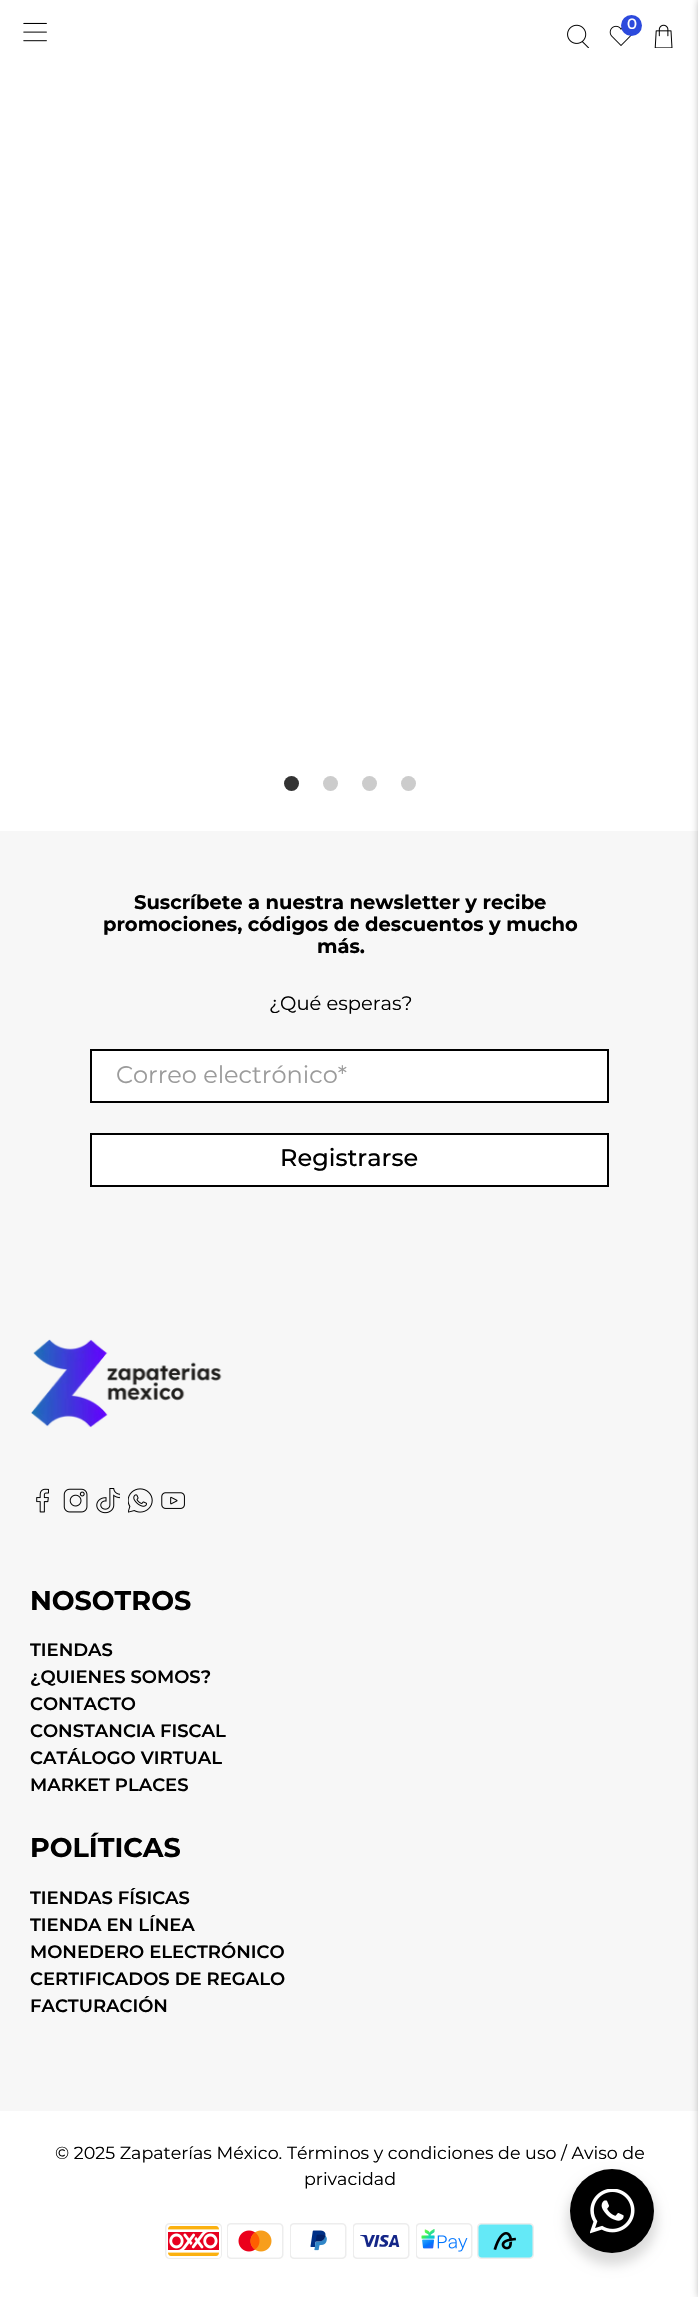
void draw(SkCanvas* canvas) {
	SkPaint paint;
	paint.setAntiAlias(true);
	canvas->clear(0xffffffff);
	canvas->drawImageRect(SkImages::DeferredFromEncodedData(SkData::MakeFromFileName("img1.png")), SkRect::MakeXYWH(23, 22, 24, 20), SkSamplingOptions());
	canvas->drawImageRect(SkImages::DeferredFromEncodedData(SkData::MakeFromFileName("img2.png")), SkRect::MakeXYWH(567, 24, 23, 24), SkSamplingOptions());
	canvas->drawImageRect(SkImages::DeferredFromEncodedData(SkData::MakeFromFileName("img3.png")), SkRect::MakeXYWH(609, 25, 23, 21), SkSamplingOptions());
	paint.setColor(0xff2c4add);
	canvas->drawCircle(631.5, 25.5, 10.5, paint);
	SkFont f1(fontMgr->matchFamilyStyle("Montserrat", SkFontStyle(500, SkFontStyle::kNormal_Width, SkFontStyle::kUpright_Slant)), 15);
	f1.setSubpixel(true);
	paint.setColor(0xffffffff);
	canvas->drawString("0", 627, 29, f1, paint);
	canvas->drawImageRect(SkImages::DeferredFromEncodedData(SkData::MakeFromFileName("img4.png")), SkRect::MakeXYWH(654, 24, 19, 24), SkSamplingOptions());
	paint.setColor(0xfff7f7f7);
	canvas->drawRect(SkRect::MakeXYWH(0, 831, 698, 1280), paint);
	paint.setColor(0x80000000);
	paint.setMaskFilter(SkMaskFilter::MakeBlur(kNormal_SkBlurStyle, 5));
	canvas->drawRect(SkRect::MakeXYWH(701, 0, 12, 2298), paint);
	paint.setMaskFilter(nullptr);
	paint.setColor(0xff333333);
	canvas->drawCircle(291.5, 783.5, 7.5, paint);
	paint.setColor(0xffcccccc);
	canvas->drawCircle(330.5, 783.5, 7.5, paint);
	canvas->drawCircle(369.5, 783.5, 7.5, paint);
	canvas->drawCircle(408.5, 783.5, 7.5, paint);
	SkFont f2(fontMgr->matchFamilyStyle("Montserrat", SkFontStyle::Bold()), 19.5);
	f2.setSubpixel(true);
	paint.setColor(0xff000000);
	canvas->drawString("Suscríbete a nuestra newsletter y recibe", 134, 909, f2, paint);
	canvas->drawString("promociones, códigos de descuentos y mucho", 103, 931, f2, paint);
	canvas->drawString("más.", 317, 953, f2, paint);
	SkFont f3(fontMgr->matchFamilyStyle("Montserrat", SkFontStyle::Normal()), 19.5);
	f3.setSubpixel(true);
	canvas->drawString("¿Qué esperas?", 269, 1010, f3, paint);
	paint.setColor(0xffffffff);
	canvas->drawRect(SkRect::MakeXYWH(91, 1050, 517, 52), paint);
	paint.setStroke(true);
	paint.setStrokeWidth(2);
	paint.setColor(0xff000000);
	canvas->drawRect(SkRect::MakeXYWH(91, 1050, 517, 52), paint);
	SkFont f4(fontMgr->matchFamilyStyle("Montserrat", SkFontStyle::Normal()), 24);
	f4.setSubpixel(true);
	paint.setStroke(false);
	paint.setColor(0xff9b9b9b);
	canvas->drawString("Correo electrónico*", 116, 1083, f4, paint);
	paint.setColor(0xffffffff);
	canvas->drawRect(SkRect::MakeXYWH(91, 1134, 517, 52), paint);
	paint.setStroke(true);
	paint.setColor(0xff000000);
	canvas->drawRect(SkRect::MakeXYWH(91, 1134, 517, 52), paint);
	SkFont f5(fontMgr->matchFamilyStyle("Montserrat", SkFontStyle(500, SkFontStyle::kNormal_Width, SkFontStyle::kUpright_Slant)), 24);
	f5.setSubpixel(true);
	paint.setStroke(false);
	canvas->drawString("Registrarse", 280, 1166, f5, paint);
	canvas->drawImageRect(SkImages::DeferredFromEncodedData(SkData::MakeFromFileName("img5.png")), SkRect::MakeXYWH(31, 1339, 191, 89), SkSamplingOptions());
	canvas->drawImageRect(SkImages::DeferredFromEncodedData(SkData::MakeFromFileName("img6.png")), SkRect::MakeXYWH(36, 1488, 13, 25), SkSamplingOptions());
	canvas->drawImageRect(SkImages::DeferredFromEncodedData(SkData::MakeFromFileName("img7.png")), SkRect::MakeXYWH(63, 1488, 25, 25), SkSamplingOptions());
	canvas->drawImageRect(SkImages::DeferredFromEncodedData(SkData::MakeFromFileName("img8.png")), SkRect::MakeXYWH(96, 1488, 24, 26), SkSamplingOptions());
	canvas->drawImageRect(SkImages::DeferredFromEncodedData(SkData::MakeFromFileName("img9.png")), SkRect::MakeXYWH(128, 1488, 25, 25), SkSamplingOptions());
	canvas->drawImageRect(SkImages::DeferredFromEncodedData(SkData::MakeFromFileName("img10.png")), SkRect::MakeXYWH(161, 1492, 24, 17), SkSamplingOptions());
	SkFont f6(fontMgr->matchFamilyStyle("Montserrat", SkFontStyle::Bold()), 27);
	f6.setSubpixel(true);
	canvas->drawString("NOSOTROS", 30, 1610, f6, paint);
	SkFont f7(fontMgr->matchFamilyStyle("Montserrat", SkFontStyle(600, SkFontStyle::kNormal_Width, SkFontStyle::kUpright_Slant)), 18);
	f7.setSubpixel(true);
	canvas->drawString("TIENDAS", 30, 1656, f7, paint);
	canvas->drawString("¿QUIENES SOMOS?", 30, 1683, f7, paint);
	canvas->drawString("CONTACTO", 30, 1710, f7, paint);
	canvas->drawString("CONSTANCIA FISCAL", 30, 1737, f7, paint);
	canvas->drawString("CATÁLOGO VIRTUAL", 30, 1764, f7, paint);
	canvas->drawString("MARKET PLACES", 30, 1791, f7, paint);
	canvas->drawString("POLÍTICAS", 30, 1857, f6, paint);
	canvas->drawString("TIENDAS FÍSICAS", 30, 1904, f7, paint);
	canvas->drawString("TIENDA EN LÍNEA", 30, 1931, f7, paint);
	canvas->drawString("MONEDERO ELECTRÓNICO", 30, 1958, f7, paint);
	canvas->drawString("CERTIFICADOS DE REGALO", 30, 1985, f7, paint);
	canvas->drawString("FACTURACIÓN", 30, 2012, f7, paint);
	SkFont f8(fontMgr->matchFamilyStyle("Montserrat", SkFontStyle::Normal()), 17.5);
	f8.setSubpixel(true);
	canvas->drawString("© 2025 Zapaterías México. Términos y condiciones de uso / Aviso de", 55, 2159, f8, paint);
	canvas->drawString("privacidad", 304, 2185, f8, paint);
	canvas->drawImageRect(SkImages::DeferredFromEncodedData(SkData::MakeFromFileName("img11.png")), SkRect::MakeXYWH(165, 2223, 57, 36), SkSamplingOptions());
	canvas->drawImageRect(SkImages::DeferredFromEncodedData(SkData::MakeFromFileName("img12.png")), SkRect::MakeXYWH(227, 2223, 57, 36), SkSamplingOptions());
	canvas->drawImageRect(SkImages::DeferredFromEncodedData(SkData::MakeFromFileName("img13.png")), SkRect::MakeXYWH(290, 2223, 57, 36), SkSamplingOptions());
	canvas->drawImageRect(SkImages::DeferredFromEncodedData(SkData::MakeFromFileName("img14.png")), SkRect::MakeXYWH(353, 2223, 57, 36), SkSamplingOptions());
	canvas->drawImageRect(SkImages::DeferredFromEncodedData(SkData::MakeFromFileName("img15.png")), SkRect::MakeXYWH(416, 2223, 57, 36), SkSamplingOptions());
	canvas->drawImageRect(SkImages::DeferredFromEncodedData(SkData::MakeFromFileName("img16.png")), SkRect::MakeXYWH(477, 2223, 57, 36), SkSamplingOptions());
	paint.setColor(0x24000000);
	paint.setMaskFilter(SkMaskFilter::MakeBlur(kNormal_SkBlurStyle, 6));
	canvas->drawRoundRect(SkRect::MakeXYWH(567, 2175, 90, 90), 45, 45, paint);
	paint.setMaskFilter(nullptr);
	paint.setColor(0xff000000);
	canvas->drawCircle(612, 2211, 42, paint);
	canvas->drawImageRect(SkImages::DeferredFromEncodedData(SkData::MakeFromFileName("img17.png")), SkRect::MakeXYWH(590, 2189, 45, 45), SkSamplingOptions());
}
